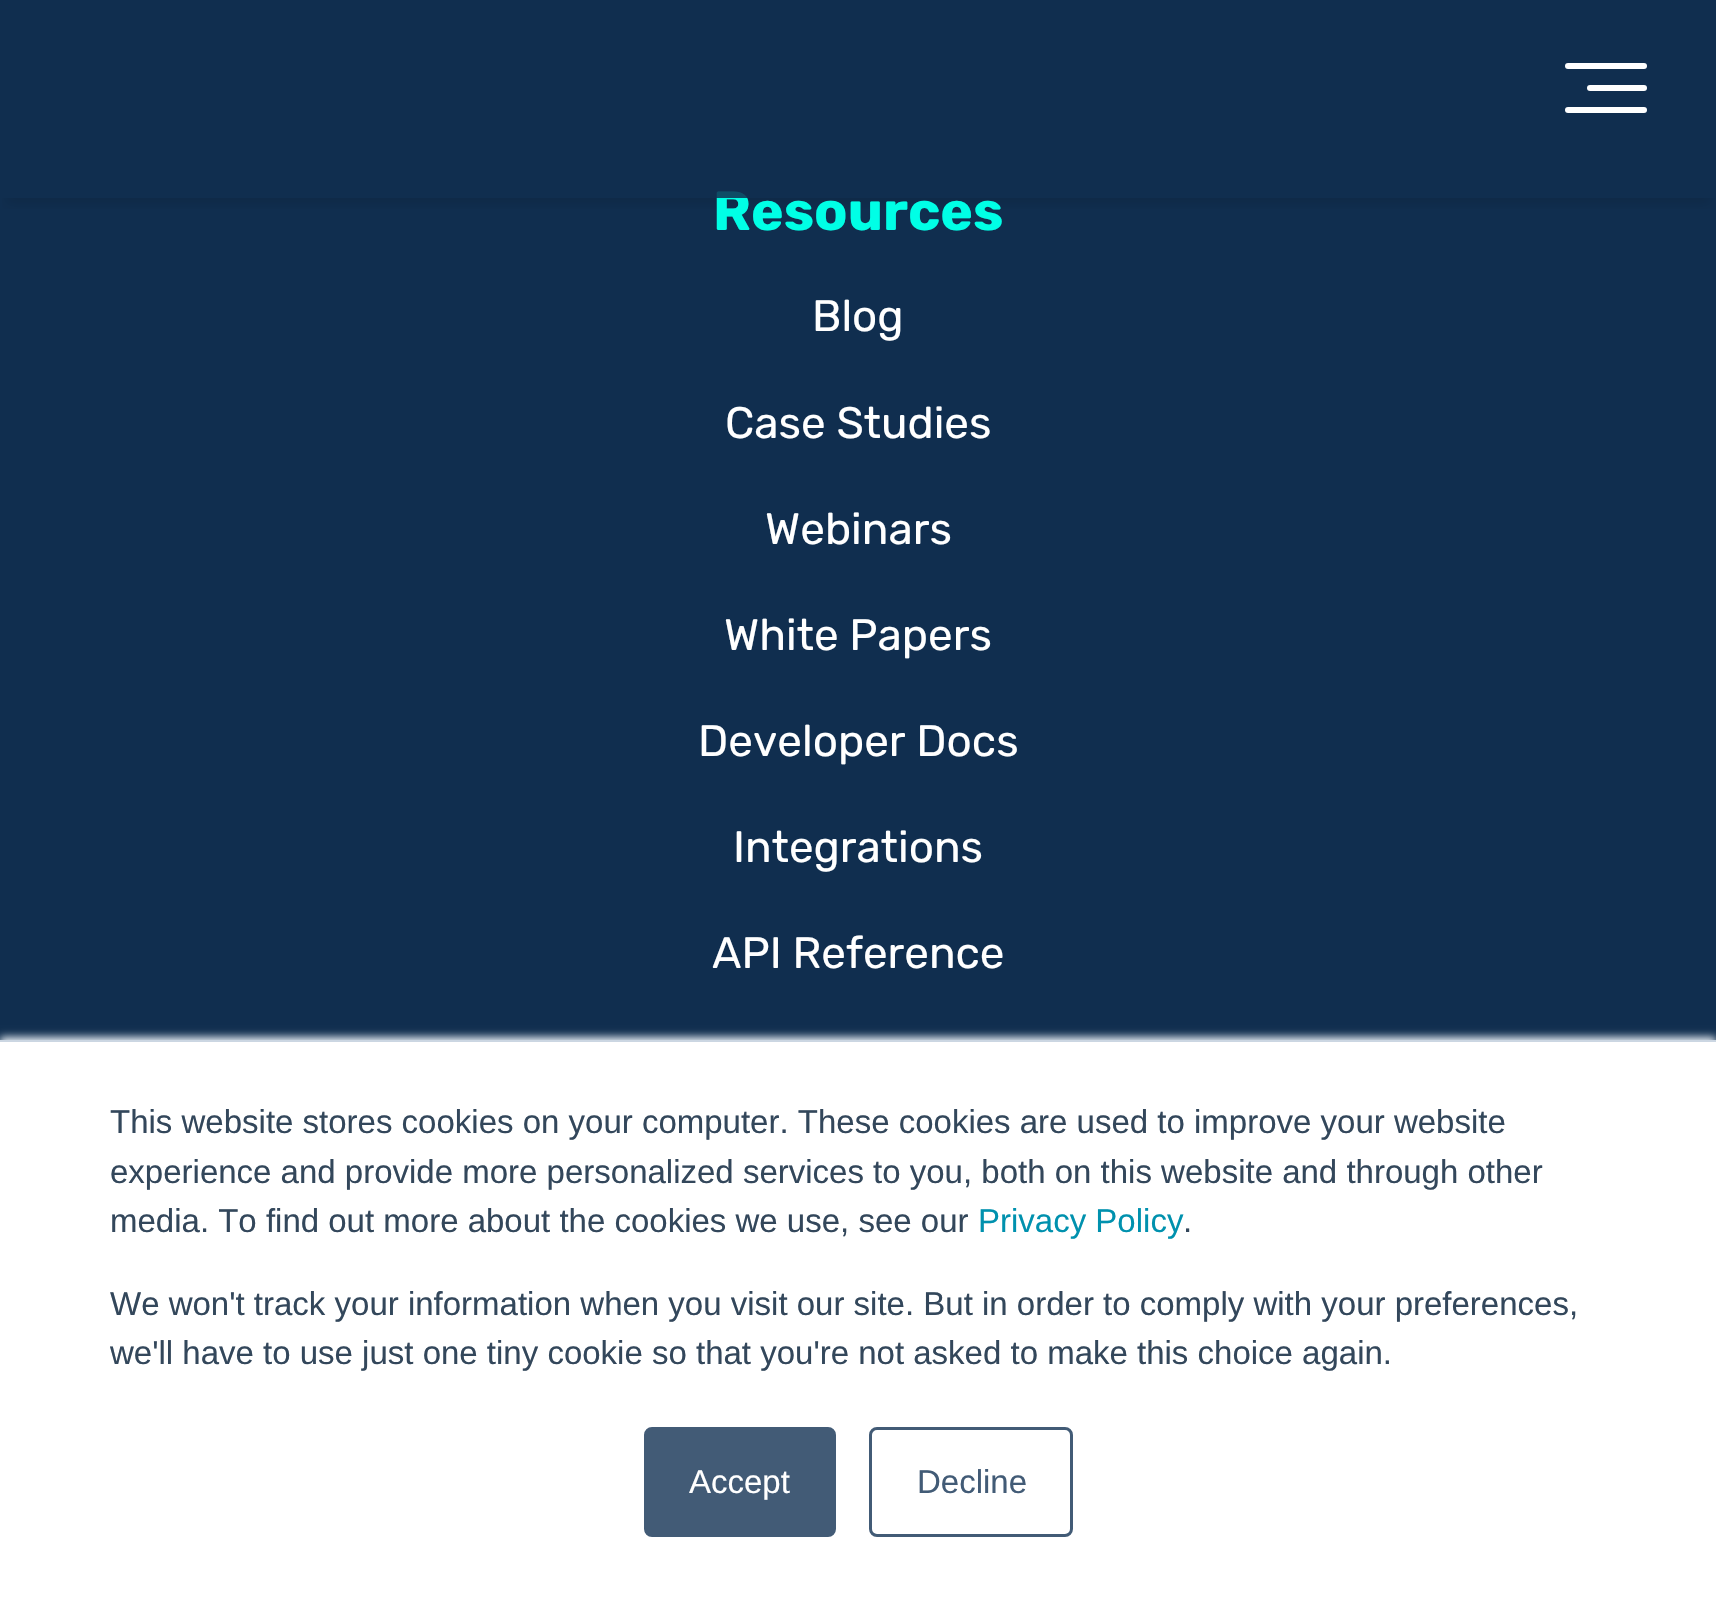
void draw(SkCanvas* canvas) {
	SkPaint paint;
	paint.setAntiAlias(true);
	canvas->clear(0xff102e4f);
	canvas->save();
	canvas->clipRect(SkRect::MakeXYWH(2, 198, 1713, 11));
	paint.setColor(0x1a000000);
	paint.setMaskFilter(SkMaskFilter::MakeBlur(kNormal_SkBlurStyle, 5.5));
	canvas->drawRect(SkRect::MakeXYWH(6, 17, 1705, 187), paint);
	paint.setMaskFilter(nullptr);
	canvas->restore();
	SkFont f1(fontMgr->matchFamilyStyle("Rubik", SkFontStyle::Bold()), 55);
	f1.setSubpixel(true);
	paint.setColor(0xff00ffe6);
	canvas->drawString("Resources", 713, 230, f1, paint);
	paint.setColor(0xd9102e4f);
	canvas->drawRect(SkRect::MakeXYWH(716, 191, 31, 7), paint);
	paint.setColor(0xffffffff);
	canvas->drawRoundRect(SkRect::MakeXYWH(1565, 63, 82, 6), 3, 3, paint);
	canvas->drawRoundRect(SkRect::MakeXYWH(1587, 85, 60, 6), 3, 3, paint);
	canvas->drawRoundRect(SkRect::MakeXYWH(1565, 107, 82, 6), 3, 3, paint);
	SkFont f2(fontMgr->matchFamilyStyle("Rubik", SkFontStyle::Normal()), 44);
	f2.setSubpixel(true);
	canvas->drawString("Blog", 812, 331, f2, paint);
	canvas->drawString("Case Studies", 725, 438, f2, paint);
	canvas->drawString("Webinars", 765, 544, f2, paint);
	canvas->drawString("White Papers", 724, 650, f2, paint);
	canvas->drawString("Developer Docs", 698, 756, f2, paint);
	canvas->drawString("Integrations", 733, 862, f2, paint);
	canvas->drawString("API Reference", 712, 968, f2, paint);
	paint.setColor(0xffeaf0f6);
	paint.setMaskFilter(SkMaskFilter::MakeBlur(kNormal_SkBlurStyle, 4));
	canvas->drawRect(SkRect::MakeXYWH(0, 1037, 1716, 569), paint);
	paint.setMaskFilter(nullptr);
	paint.setColor(0xffcbd6e2);
	canvas->drawRect(SkRect::MakeXYWH(0, 1040, 1716, 2), paint);
	paint.setColor(0xffffffff);
	canvas->drawRect(SkRect::MakeXYWH(0, 1042, 1716, 565), paint);
	SkFont f3(fontMgr->matchFamilyStyle("Liberation Sans", SkFontStyle::Normal()), 33);
	f3.setSubpixel(true);
	paint.setColor(0xff33475b);
	canvas->drawString("This website stores cookies on your computer. These cookies are used to improve your website", 110, 1133, f3, paint);
	canvas->drawString("experience and provide more personalized services to you, both on this website and through other", 110, 1183, f3, paint);
	canvas->drawString("media. To find out more about the cookies we use, see our", 110, 1232, f3, paint);
	paint.setColor(0xff0091ae);
	canvas->drawString("Privacy Policy", 978, 1232, f3, paint);
	paint.setColor(0xff33475b);
	canvas->drawString(".", 1183, 1232, f3, paint);
	canvas->drawString("We won't track your information when you visit our site. But in order to comply with your preferences,", 110, 1315, f3, paint);
	canvas->drawString("we'll have to use just one tiny cookie so that you're not asked to make this choice again.", 110, 1364, f3, paint);
	paint.setColor(0xff425b76);
	canvas->drawRoundRect(SkRect::MakeXYWH(645.5, 1428.5, 189, 107), 6.5, 6.5, paint);
	paint.setStroke(true);
	paint.setStrokeWidth(3);
	canvas->drawRoundRect(SkRect::MakeXYWH(645.5, 1428.5, 189, 107), 6.5, 6.5, paint);
	paint.setStroke(false);
	paint.setColor(0xffffffff);
	canvas->drawString("Accept", 689, 1493, f3, paint);
	paint.setStroke(true);
	paint.setColor(0xff425b76);
	canvas->drawRoundRect(SkRect::MakeXYWH(870.5, 1428.5, 201, 107), 6.5, 6.5, paint);
	paint.setStroke(false);
	canvas->drawString("Decline", 917, 1493, f3, paint);
}
